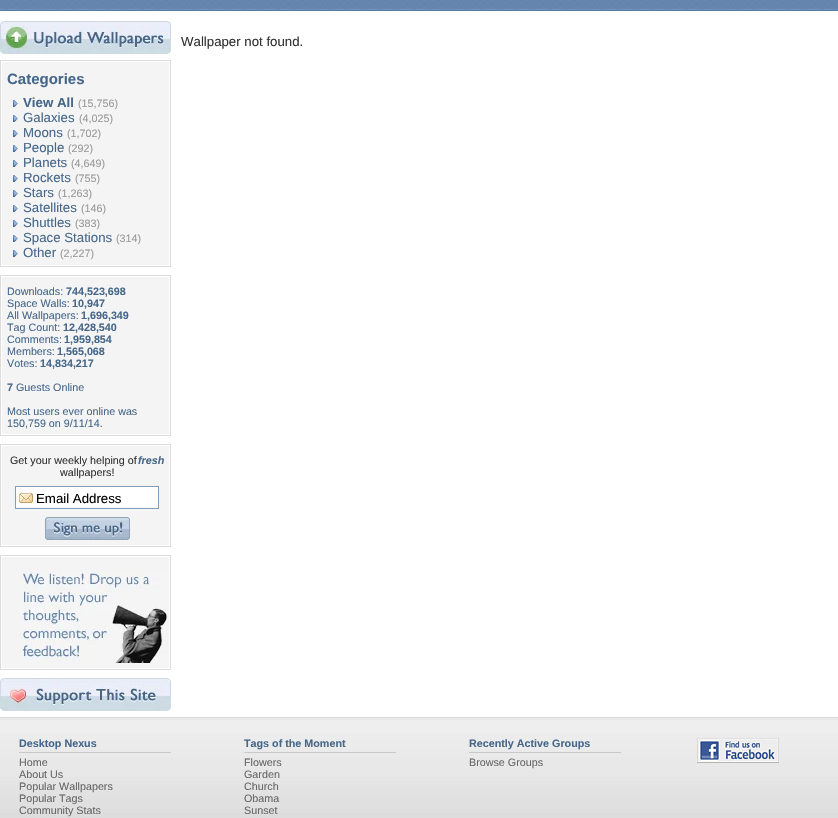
void draw(SkCanvas* canvas) {
	SkPaint paint;
	paint.setAntiAlias(true);
	canvas->clear(0xffffffff);
	canvas->drawImageRect(SkImages::DeferredFromEncodedData(SkData::MakeFromFileName("img1.png")), SkRect::MakeXYWH(0, 0, 838, 11), SkSamplingOptions());
	SkFont f1(fontMgr->matchFamilyStyle("Liberation Sans", SkFontStyle::Normal()), 13.25);
	f1.setSubpixel(true);
	paint.setColor(0xff333333);
	canvas->drawString("Wallpaper not found.", 181, 46, f1, paint);
	canvas->drawImageRect(SkImages::DeferredFromEncodedData(SkData::MakeFromFileName("img2.png")), SkRect::MakeXYWH(0, 21, 171, 33), SkSamplingOptions());
	paint.setStroke(true);
	paint.setStrokeWidth(1);
	paint.setColor(0xffdcdcdc);
	canvas->drawRect(SkRect::MakeXYWH(0.5, 60.5, 170, 206), paint);
	paint.setStroke(false);
	paint.setColor(0xfff4f4f4);
	canvas->drawRect(SkRect::MakeXYWH(2, 62, 167, 203), paint);
	SkFont f2(fontMgr->matchFamilyStyle("Liberation Sans", SkFontStyle::Bold()), 15);
	f2.setSubpixel(true);
	paint.setColor(0xff46678a);
	canvas->drawString("Categories", 7, 84, f2, paint);
	canvas->drawImageRect(SkImages::DeferredFromEncodedData(SkData::MakeFromFileName("img3.png")), SkRect::MakeXYWH(13, 100, 5, 7), SkSamplingOptions());
	SkFont f3(fontMgr->matchFamilyStyle("Liberation Sans", SkFontStyle::Bold()), 13.25);
	f3.setSubpixel(true);
	canvas->drawString("View All", 23, 107, f3, paint);
	SkFont f4(fontMgr->matchFamilyStyle("Liberation Sans", SkFontStyle::Normal()), 10.75);
	f4.setSubpixel(true);
	paint.setColor(0xff999999);
	canvas->drawString("(15,756)", 78, 107, f4, paint);
	canvas->drawImageRect(SkImages::DeferredFromEncodedData(SkData::MakeFromFileName("img3.png")), SkRect::MakeXYWH(13, 115, 5, 7), SkSamplingOptions());
	paint.setColor(0xff46678a);
	canvas->drawString("Galaxies", 23, 122, f1, paint);
	paint.setColor(0xff999999);
	canvas->drawString("(4,025)", 79, 122, f4, paint);
	canvas->drawImageRect(SkImages::DeferredFromEncodedData(SkData::MakeFromFileName("img3.png")), SkRect::MakeXYWH(13, 130, 5, 7), SkSamplingOptions());
	paint.setColor(0xff46678a);
	canvas->drawString("Moons", 23, 137, f1, paint);
	paint.setColor(0xff999999);
	canvas->drawString("(1,702)", 67, 137, f4, paint);
	canvas->drawImageRect(SkImages::DeferredFromEncodedData(SkData::MakeFromFileName("img3.png")), SkRect::MakeXYWH(13, 145, 5, 7), SkSamplingOptions());
	paint.setColor(0xff46678a);
	canvas->drawString("People", 23, 152, f1, paint);
	paint.setColor(0xff999999);
	canvas->drawString("(292)", 68, 152, f4, paint);
	canvas->drawImageRect(SkImages::DeferredFromEncodedData(SkData::MakeFromFileName("img3.png")), SkRect::MakeXYWH(13, 160, 5, 7), SkSamplingOptions());
	paint.setColor(0xff46678a);
	canvas->drawString("Planets", 23, 167, f1, paint);
	paint.setColor(0xff999999);
	canvas->drawString("(4,649)", 71, 167, f4, paint);
	canvas->drawImageRect(SkImages::DeferredFromEncodedData(SkData::MakeFromFileName("img3.png")), SkRect::MakeXYWH(13, 175, 5, 7), SkSamplingOptions());
	paint.setColor(0xff46678a);
	canvas->drawString("Rockets", 23, 182, f1, paint);
	paint.setColor(0xff999999);
	canvas->drawString("(755)", 75, 182, f4, paint);
	canvas->drawImageRect(SkImages::DeferredFromEncodedData(SkData::MakeFromFileName("img3.png")), SkRect::MakeXYWH(13, 190, 5, 7), SkSamplingOptions());
	paint.setColor(0xff46678a);
	canvas->drawString("Stars", 23, 197, f1, paint);
	paint.setColor(0xff999999);
	canvas->drawString("(1,263)", 58, 197, f4, paint);
	canvas->drawImageRect(SkImages::DeferredFromEncodedData(SkData::MakeFromFileName("img3.png")), SkRect::MakeXYWH(13, 205, 5, 7), SkSamplingOptions());
	paint.setColor(0xff46678a);
	canvas->drawString("Satellites", 23, 212, f1, paint);
	paint.setColor(0xff999999);
	canvas->drawString("(146)", 81, 212, f4, paint);
	canvas->drawImageRect(SkImages::DeferredFromEncodedData(SkData::MakeFromFileName("img3.png")), SkRect::MakeXYWH(13, 220, 5, 7), SkSamplingOptions());
	paint.setColor(0xff46678a);
	canvas->drawString("Shuttles", 23, 227, f1, paint);
	paint.setColor(0xff999999);
	canvas->drawString("(383)", 75, 227, f4, paint);
	canvas->drawImageRect(SkImages::DeferredFromEncodedData(SkData::MakeFromFileName("img3.png")), SkRect::MakeXYWH(13, 235, 5, 7), SkSamplingOptions());
	paint.setColor(0xff46678a);
	canvas->drawString("Space Stations", 23, 242, f1, paint);
	paint.setColor(0xff999999);
	canvas->drawString("(314)", 116, 242, f4, paint);
	canvas->drawImageRect(SkImages::DeferredFromEncodedData(SkData::MakeFromFileName("img3.png")), SkRect::MakeXYWH(13, 250, 5, 7), SkSamplingOptions());
	paint.setColor(0xff46678a);
	canvas->drawString("Other", 23, 257, f1, paint);
	paint.setColor(0xff999999);
	canvas->drawString("(2,227)", 60, 257, f4, paint);
	paint.setStroke(true);
	paint.setColor(0xffdcdcdc);
	canvas->drawRect(SkRect::MakeXYWH(0.5, 275.5, 170, 160), paint);
	paint.setStroke(false);
	paint.setColor(0xfff4f4f4);
	canvas->drawRect(SkRect::MakeXYWH(2, 277, 167, 157), paint);
	paint.setColor(0xff46678a);
	canvas->drawString("Downloads:", 7, 295, f4, paint);
	SkFont f5(fontMgr->matchFamilyStyle("Liberation Sans", SkFontStyle::Bold()), 10.75);
	f5.setSubpixel(true);
	canvas->drawString("744,523,698", 66, 295, f5, paint);
	canvas->drawString("Space Walls:", 7, 307, f4, paint);
	canvas->drawString("10,947", 72, 307, f5, paint);
	canvas->drawString("All Wallpapers:", 7, 319, f4, paint);
	canvas->drawString("1,696,349", 81, 319, f5, paint);
	canvas->drawString("Tag Count:", 7, 331, f4, paint);
	canvas->drawString("12,428,540", 63, 331, f5, paint);
	canvas->drawString("Comments:", 7, 343, f4, paint);
	canvas->drawString("1,959,854", 64, 343, f5, paint);
	canvas->drawString("Members:", 7, 355, f4, paint);
	canvas->drawString("1,565,068", 57, 355, f5, paint);
	canvas->drawString("Votes:", 7, 367, f4, paint);
	canvas->drawString("14,834,217", 40, 367, f5, paint);
	canvas->drawString("7", 7, 391, f5, paint);
	canvas->drawString("Guests Online", 16, 391, f4, paint);
	canvas->drawString("Most users ever online was", 7, 415, f4, paint);
	canvas->drawString("150,759 on 9/11/14.", 7, 427, f4, paint);
	paint.setStroke(true);
	paint.setColor(0xffdcdcdc);
	canvas->drawRect(SkRect::MakeXYWH(0.5, 444.5, 170, 102), paint);
	paint.setStroke(false);
	paint.setColor(0xfff4f4f4);
	canvas->drawRect(SkRect::MakeXYWH(2, 446, 167, 99), paint);
	paint.setColor(0xff333333);
	canvas->drawString("Get your weekly helping of", 10, 464, f4, paint);
	SkFont f6(fontMgr->matchFamilyStyle("Liberation Sans", SkFontStyle::BoldItalic()), 10.75);
	f6.setSubpixel(true);
	paint.setColor(0xff46678a);
	canvas->drawString("fresh", 138, 464, f6, paint);
	paint.setColor(0xff333333);
	canvas->drawString("wallpapers!", 60, 476, f4, paint);
	paint.setColor(0xffffffff);
	canvas->drawRect(SkRect::MakeXYWH(16, 487, 142, 21), paint);
	canvas->drawImageRect(SkImages::DeferredFromEncodedData(SkData::MakeFromFileName("img4.png")), SkRect::MakeXYWH(16, 493, 17, 10), SkSamplingOptions());
	paint.setStroke(true);
	paint.setColor(0xff7f9db9);
	canvas->drawRect(SkRect::MakeXYWH(15.5, 486.5, 143, 22), paint);
	paint.setStroke(false);
	paint.setColor(0xff000000);
	canvas->drawString("Email Address", 36, 503, f1, paint);
	canvas->drawImageRect(SkImages::DeferredFromEncodedData(SkData::MakeFromFileName("img5.png")), SkRect::MakeXYWH(45, 517, 85, 23), SkSamplingOptions());
	paint.setStroke(true);
	paint.setColor(0xffdcdcdc);
	canvas->drawRect(SkRect::MakeXYWH(0.5, 555.5, 170, 114), paint);
	paint.setStroke(false);
	paint.setColor(0xfff4f4f4);
	canvas->drawRect(SkRect::MakeXYWH(2, 557, 167, 111), paint);
	canvas->drawImageRect(SkImages::DeferredFromEncodedData(SkData::MakeFromFileName("img6.png")), SkRect::MakeXYWH(20, 572, 147, 91), SkSamplingOptions());
	canvas->drawImageRect(SkImages::DeferredFromEncodedData(SkData::MakeFromFileName("img7.png")), SkRect::MakeXYWH(0, 678, 171, 33), SkSamplingOptions());
	canvas->drawImageRect(SkImages::DeferredFromEncodedData(SkData::MakeFromFileName("img8.png")), SkRect::MakeXYWH(0, 717, 838, 101), SkSamplingOptions());
	paint.setColor(0xff46678a);
	canvas->drawString("Desktop Nexus", 19, 747, f5, paint);
	paint.setColor(0xffc9c9c9);
	canvas->drawRect(SkRect::MakeXYWH(19, 752, 152, 1), paint);
	paint.setColor(0xff666666);
	canvas->drawString("Home", 19, 766, f4, paint);
	canvas->drawString("About Us", 19, 778, f4, paint);
	canvas->drawString("Popular Wallpapers", 19, 790, f4, paint);
	canvas->drawString("Popular Tags", 19, 802, f4, paint);
	canvas->drawString("Community Stats", 19, 814, f4, paint);
	paint.setColor(0xff46678a);
	canvas->drawString("Tags of the Moment", 244, 747, f5, paint);
	paint.setColor(0xffc9c9c9);
	canvas->drawRect(SkRect::MakeXYWH(244, 752, 152, 1), paint);
	paint.setColor(0xff666666);
	canvas->drawString("Flowers", 244, 766, f4, paint);
	canvas->drawString("Garden", 244, 778, f4, paint);
	canvas->drawString("Church", 244, 790, f4, paint);
	canvas->drawString("Obama", 244, 802, f4, paint);
	canvas->drawString("Sunset", 244, 814, f4, paint);
	paint.setColor(0xff46678a);
	canvas->drawString("Recently Active Groups", 469, 747, f5, paint);
	paint.setColor(0xffc9c9c9);
	canvas->drawRect(SkRect::MakeXYWH(469, 752, 152, 1), paint);
	paint.setColor(0xff666666);
	canvas->drawString("Browse Groups", 469, 766, f4, paint);
	canvas->drawImageRect(SkImages::DeferredFromEncodedData(SkData::MakeFromFileName("img9.png")), SkRect::MakeXYWH(697, 738, 82, 25), SkSamplingOptions());
}
